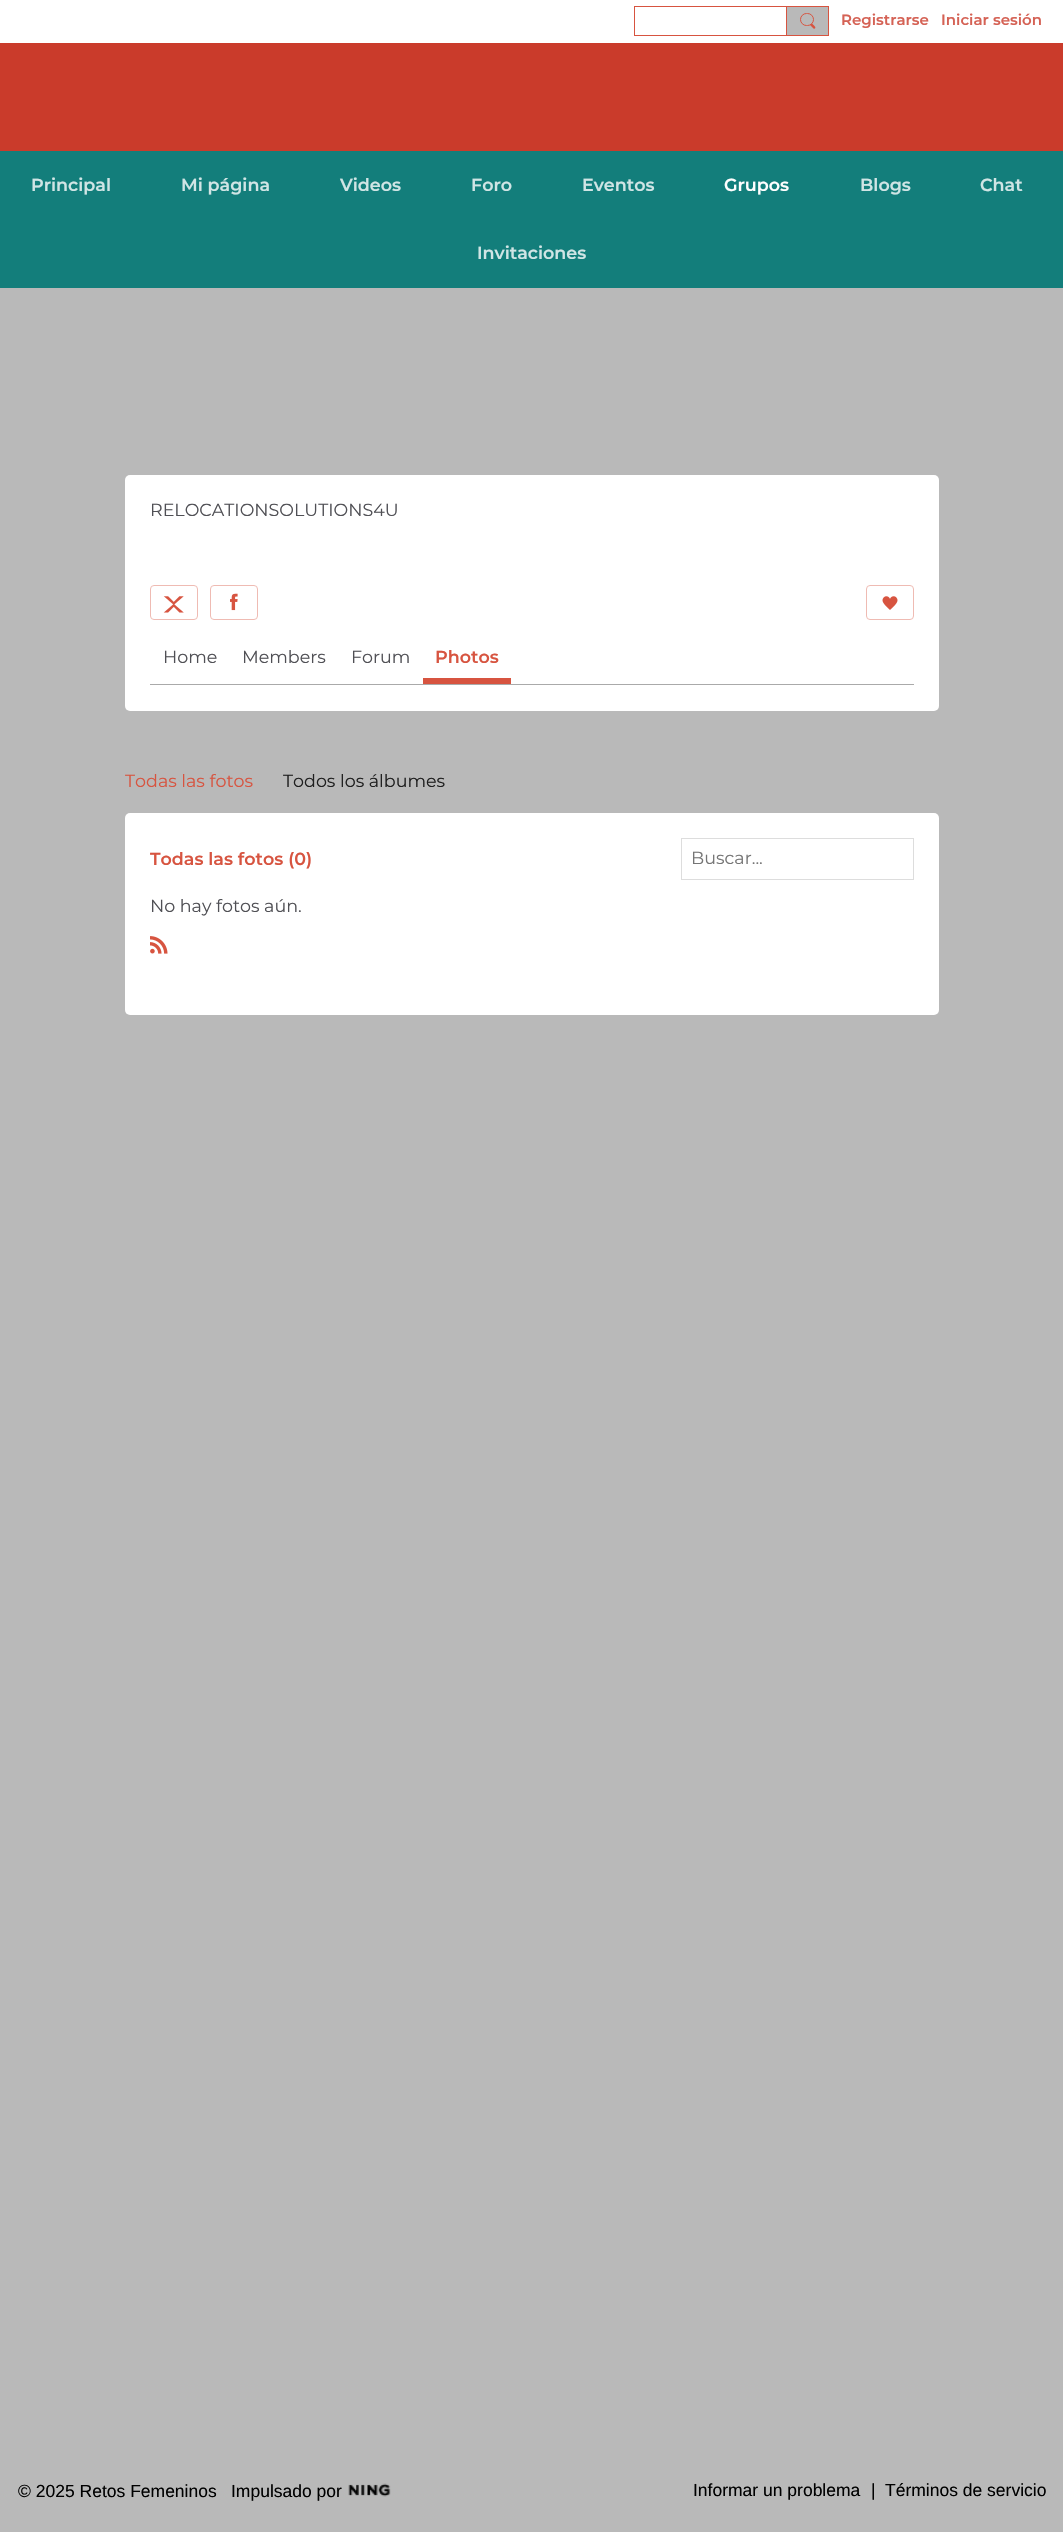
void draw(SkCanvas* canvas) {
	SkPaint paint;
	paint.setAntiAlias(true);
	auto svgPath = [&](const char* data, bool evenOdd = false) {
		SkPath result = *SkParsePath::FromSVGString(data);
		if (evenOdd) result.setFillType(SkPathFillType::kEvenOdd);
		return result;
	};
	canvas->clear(0xffb9b9b9);
	paint.setColor(0xffffffff);
	canvas->drawRect(SkRect::MakeXYWH(0, 0, 1063, 43), paint);
	paint.setStroke(true);
	paint.setStrokeWidth(1);
	paint.setColor(0xffd75440);
	canvas->drawRect(SkRect::MakeXYWH(634.5, 6.5, 153, 29), paint);
	paint.setStroke(false);
	paint.setColor(0xffb9b9b9);
	canvas->drawRect(SkRect::MakeXYWH(786.5, 6.5, 42, 29), paint);
	paint.setStroke(true);
	paint.setColor(0xffd75440);
	canvas->drawRect(SkRect::MakeXYWH(786.5, 6.5, 42, 29), paint);
	canvas->drawRoundRect(SkRect::MakeXYWH(800.5, 13.5, 13, 12), 6, 6, paint);
	paint.setStroke(false);
	canvas->drawPath(svgPath("M812.5 24L814.5 26C816.5 28 814.5 29.5 813.5 28.5L810.5 25.5C809.5 24.5 811.5 23 812.5 24Z"), paint);
	SkFont f1(fontMgr->matchFamilyStyle("Montserrat", SkFontStyle(600, SkFontStyle::kNormal_Width, SkFontStyle::kUpright_Slant)), 15);
	f1.setSubpixel(true);
	paint.setColor(0xffd56255);
	canvas->drawString("Registrarse", 841, 25, f1, paint);
	canvas->drawString("Iniciar sesión", 941, 25, f1, paint);
	paint.setColor(0xffca3b2b);
	canvas->drawRect(SkRect::MakeXYWH(0, 43, 1063, 108), paint);
	paint.setColor(0xff137e7b);
	canvas->drawRect(SkRect::MakeXYWH(0, 151, 1063, 137), paint);
	SkFont f2(fontMgr->matchFamilyStyle("Montserrat", SkFontStyle(600, SkFontStyle::kNormal_Width, SkFontStyle::kUpright_Slant)), 17.5);
	f2.setSubpixel(true);
	paint.setColor(0xffd0e5e5);
	canvas->drawString("Principal", 31, 191, f2, paint);
	canvas->drawString("Mi página", 181, 191, f2, paint);
	canvas->drawString("Videos", 340, 191, f2, paint);
	canvas->drawString("Foro", 471, 191, f2, paint);
	canvas->drawString("Eventos", 582, 191, f2, paint);
	paint.setColor(0xffffffff);
	canvas->drawString("Grupos", 724, 191, f2, paint);
	paint.setColor(0xffd0e5e5);
	canvas->drawString("Blogs", 860, 191, f2, paint);
	canvas->drawString("Chat", 980, 191, f2, paint);
	canvas->drawString("Invitaciones", 477, 259, f2, paint);
	paint.setColor(0xffffffff);
	canvas->drawRoundRect(SkRect::MakeXYWH(125, 475, 814, 236), 5, 5, paint);
	SkFont f3(fontMgr->matchFamilyStyle("Montserrat", SkFontStyle(100, SkFontStyle::kNormal_Width, SkFontStyle::kUpright_Slant)), 17.5);
	f3.setSubpixel(true);
	paint.setColor(0xff505055);
	canvas->drawString("RELOCATIONSOLUTIONS4U", 150, 516, f3, paint);
	paint.setStroke(true);
	paint.setColor(0xffefbbb3);
	canvas->drawRoundRect(SkRect::MakeXYWH(150.5, 585.5, 47, 34), 3.5, 3.5, paint);
	canvas->drawImageRect(SkImages::DeferredFromEncodedData(SkData::MakeFromFileName("img1.png")), SkRect::MakeXYWH(163, 596, 21, 17), SkSamplingOptions());
	canvas->drawRoundRect(SkRect::MakeXYWH(210.5, 585.5, 47, 34), 3.5, 3.5, paint);
	canvas->drawImageRect(SkImages::DeferredFromEncodedData(SkData::MakeFromFileName("img2.png")), SkRect::MakeXYWH(230, 593, 8, 18), SkSamplingOptions());
	canvas->drawRoundRect(SkRect::MakeXYWH(866.5, 585.5, 47, 34), 3.5, 3.5, paint);
	canvas->drawImageRect(SkImages::DeferredFromEncodedData(SkData::MakeFromFileName("img3.png")), SkRect::MakeXYWH(882, 596, 16, 14), SkSamplingOptions());
	paint.setStroke(false);
	paint.setColor(0xffaaaaaa);
	canvas->drawRect(SkRect::MakeXYWH(150, 684, 764, 1), paint);
	paint.setColor(0xff505055);
	canvas->drawString("Home", 163, 663, f3, paint);
	canvas->drawString("Members", 242, 663, f3, paint);
	canvas->drawString("Forum", 351, 663, f3, paint);
	paint.setColor(0xffd75440);
	canvas->drawRect(SkRect::MakeXYWH(423, 678, 88, 6), paint);
	canvas->drawString("Photos", 435, 663, f2, paint);
	canvas->drawString("Todas las fotos", 125, 787, f3, paint);
	paint.setColor(0xff1f1f1f);
	canvas->drawString("Todos los álbumes", 283, 787, f3, paint);
	paint.setColor(0xffffffff);
	canvas->drawRoundRect(SkRect::MakeXYWH(125, 813, 814, 202), 5, 5, paint);
	paint.setColor(0xffd75440);
	canvas->drawString("Todas las fotos (0)", 150, 865, f2, paint);
	paint.setStroke(true);
	paint.setColor(0xffdddddd);
	canvas->drawRect(SkRect::MakeXYWH(681.5, 838.5, 232, 41), paint);
	paint.setStroke(false);
	paint.setColor(0xff757575);
	canvas->drawString("Buscar...", 691, 864, f3, paint);
	paint.setColor(0xff505055);
	canvas->drawString("No hay fotos aún.", 150, 912, f3, paint);
	canvas->drawImageRect(SkImages::DeferredFromEncodedData(SkData::MakeFromFileName("img4.png")), SkRect::MakeXYWH(150, 936, 18, 18), SkSamplingOptions());
	SkFont f4(fontMgr->matchFamilyStyle("Liberation Sans", SkFontStyle::Normal()), 17.5);
	f4.setSubpixel(true);
	paint.setColor(0xff000000);
	canvas->drawString("© 2025 Retos Femeninos", 18, 2497, f4, paint);
	canvas->drawString("Impulsado por", 231, 2497, f4, paint);
	canvas->drawImageRect(SkImages::DeferredFromEncodedData(SkData::MakeFromFileName("img5.png")), SkRect::MakeXYWH(348, 2483, 43, 14), SkSamplingOptions());
	canvas->drawString("Informar un problema", 693, 2496, f4, paint);
	canvas->drawString("|", 871, 2496, f4, paint);
	canvas->drawString("Términos de servicio", 885, 2496, f4, paint);
}
